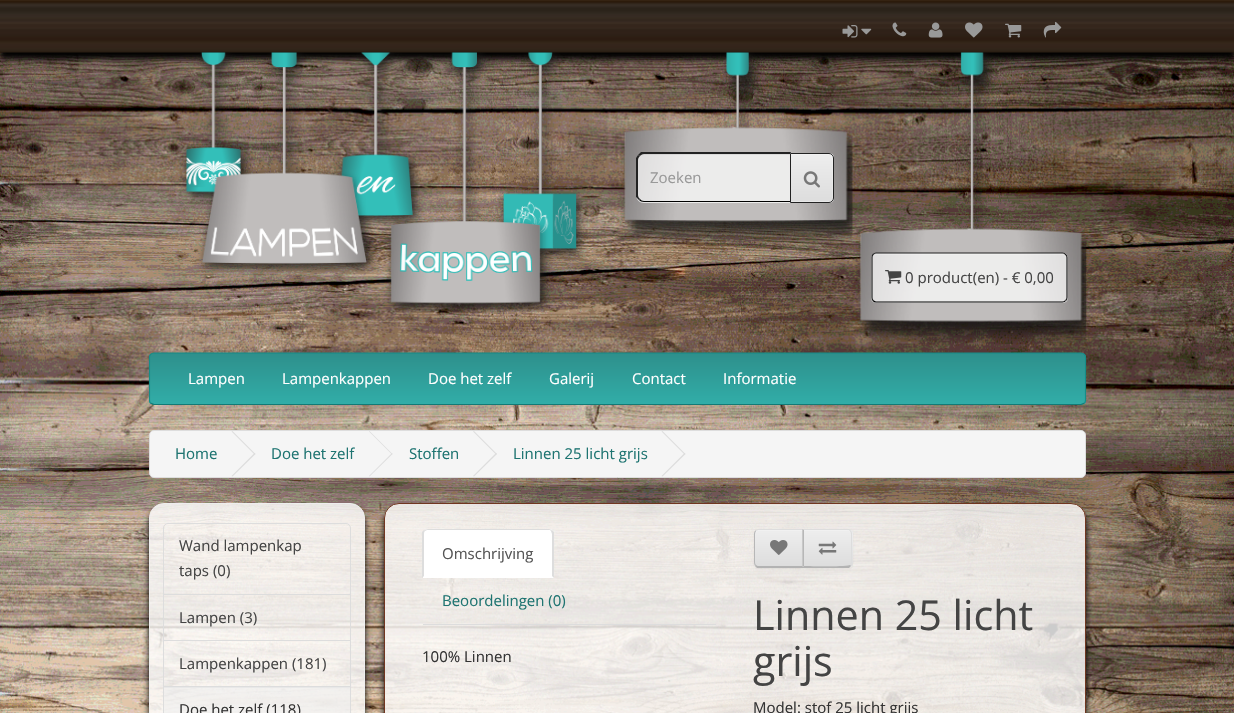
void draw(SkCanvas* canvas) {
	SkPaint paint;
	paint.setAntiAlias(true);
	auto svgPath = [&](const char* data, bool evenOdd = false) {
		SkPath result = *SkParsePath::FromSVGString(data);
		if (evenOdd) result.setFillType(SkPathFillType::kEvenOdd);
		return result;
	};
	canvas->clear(0xffffffff);
	canvas->drawImageRect(SkImages::DeferredFromEncodedData(SkData::MakeFromFileName("img1.png")), SkRect::MakeXYWH(0, 52, 1234, 661), SkSamplingOptions());
	paint.setColor(0xff000000);
	paint.setMaskFilter(SkMaskFilter::MakeBlur(kNormal_SkBlurStyle, 3));
	canvas->drawRect(SkRect::MakeXYWH(0, 6, 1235, 53), paint);
	paint.setMaskFilter(nullptr);
	canvas->drawImageRect(SkImages::DeferredFromEncodedData(SkData::MakeFromFileName("img2.png")), SkRect::MakeXYWH(0, 0, 1234, 53), SkSamplingOptions());
	canvas->drawImageRect(SkImages::DeferredFromEncodedData(SkData::MakeFromFileName("img3.png")), SkRect::MakeXYWH(842, 25, 16, 13), SkSamplingOptions());
	canvas->drawImageRect(SkImages::DeferredFromEncodedData(SkData::MakeFromFileName("img4.png")), SkRect::MakeXYWH(861, 28, 11, 7), SkSamplingOptions());
	canvas->drawImageRect(SkImages::DeferredFromEncodedData(SkData::MakeFromFileName("img5.png")), SkRect::MakeXYWH(892, 22, 15, 15), SkSamplingOptions());
	canvas->drawImageRect(SkImages::DeferredFromEncodedData(SkData::MakeFromFileName("img6.png")), SkRect::MakeXYWH(928, 22, 15, 16), SkSamplingOptions());
	canvas->drawImageRect(SkImages::DeferredFromEncodedData(SkData::MakeFromFileName("img7.png")), SkRect::MakeXYWH(965, 22, 18, 16), SkSamplingOptions());
	canvas->drawImageRect(SkImages::DeferredFromEncodedData(SkData::MakeFromFileName("img8.png")), SkRect::MakeXYWH(1005, 23, 17, 15), SkSamplingOptions());
	canvas->drawImageRect(SkImages::DeferredFromEncodedData(SkData::MakeFromFileName("img9.png")), SkRect::MakeXYWH(1043, 21, 19, 17), SkSamplingOptions());
	canvas->drawImageRect(SkImages::DeferredFromEncodedData(SkData::MakeFromFileName("img10.png")), SkRect::MakeXYWH(180, 52, 408, 261), SkSamplingOptions());
	canvas->drawImageRect(SkImages::DeferredFromEncodedData(SkData::MakeFromFileName("img11.png")), SkRect::MakeXYWH(620, 52, 233, 198), SkSamplingOptions());
	paint.setColor(0xb3ffffff);
	canvas->drawPath(svgPath("M644 153H791V203H644C639.5 203 636 199.5 636 195V161C636 156.5 639.5 153 644 153Z"), paint);
	paint.setColor(0x12000000);
	canvas->drawPath(svgPath("M644 155H790V154H644C641 154 638 157 638 160V161C638 158 640 155 644 155Z"), paint);
	paint.setColor(0xff222222);
	canvas->drawPath(svgPath("M644 154C642 154 641 155 640 156L638 155L641 152H791L790 154Z"), paint);
	paint.setColor(0xff000000);
	canvas->drawPath(svgPath("M791 202H644C642 202 640 201 639 200L640 199C641 200 642 201 644 201H790Z"), paint);
	paint.setColor(0xff222222);
	canvas->drawPath(svgPath("M636 158L638 155L640 156C639 157 638 158 638 160V195C638 197 639 198 640 199L639 200L636 197Z"), paint);
	SkFont f1(fontMgr->matchFamilyStyle("Open Sans", SkFontStyle::Normal()), 15);
	f1.setSubpixel(true);
	paint.setColor(0xff999999);
	canvas->drawString("Zoeken", 650, 183, f1, paint);
	paint.setColor(0xffe7e7e7);
	canvas->drawPath(svgPath("M790 153H829C832 153 834 155 834 158V198C834 201 832 203 829 203H790Z"), paint);
	canvas->save();
	canvas->clipPath(svgPath("M790 153H829C832 153 834 155 834 158V198C834 201 832 203 829 203H790Z"), true);
	{
		const SkColor colors[] = {0xffeeeeee, 0xffdddddd};
		const float stops[] = {0, 1};
		const SkPoint ends[] = {{812, 154}, {812, 201}};
		paint.setShader(SkGradientShader::MakeLinear(ends, colors, stops, 2, SkTileMode::kClamp));
		paint.setAlpha(255);
	}
	canvas->drawRect(SkRect::MakeXYWH(791, 154, 43, 47), paint);
	canvas->restore();
	paint.setShader(nullptr);
	paint.setColor(0x33ffffff);
	canvas->drawPath(svgPath("M791 155H830C833 156 832 164 832 166V200C833 199 833 198 833 197V158C833 156 831 154 829 154H791Z"), paint);
	paint.setStroke(true);
	paint.setStrokeWidth(1);
	paint.setColor(0xff222222);
	canvas->drawPath(svgPath("M790.5 153.5H829C831.5 153.5 833.5 155.5 833.5 158V198C833.5 200.5 831.5 202.5 829 202.5H790.5Z"), paint);
	canvas->drawImageRect(SkImages::DeferredFromEncodedData(SkData::MakeFromFileName("img12.png")), SkRect::MakeXYWH(803, 171, 17, 17), SkSamplingOptions());
	canvas->drawImageRect(SkImages::DeferredFromEncodedData(SkData::MakeFromFileName("img13.png")), SkRect::MakeXYWH(856, 52, 231, 292), SkSamplingOptions());
	paint.setStroke(false);
	paint.setColor(0xb3ffffff);
	canvas->drawRoundRect(SkRect::MakeXYWH(871, 253, 197, 50), 5, 5, paint);
	paint.setColor(0x33ffffff);
	canvas->drawPath(svgPath("M876 255H1062C1065 255 1066 257 1066 259V258C1066 256 1064 254 1062 254H877C876 254 874 255 874 256Z"), paint);
	paint.setStroke(true);
	paint.setStrokeWidth(1.2);
	paint.setColor(0xff000000);
	canvas->drawPath(svgPath("M1065.5 300.5C1065 301.5 1063.5 302 1062.5 302H876C875 302 874 301.5 873 300.5"), paint);
	paint.setColor(0xff222222);
	canvas->drawPath(svgPath("M873 300.5C872.5 300 872 298.5 872 297.5V257.5C872 256.5 872.5 255 873 254.5C874 253.5 875 253 876 253H1062.5C1063.5 253 1065 253.5 1065.5 254.5C1066.5 255 1067 256.5 1067 257.5V297.5C1067 298.5 1066.5 300 1065.5 300.5"), paint);
	canvas->drawImageRect(SkImages::DeferredFromEncodedData(SkData::MakeFromFileName("img14.png")), SkRect::MakeXYWH(885, 270, 17, 14), SkSamplingOptions());
	paint.setStroke(false);
	paint.setColor(0xff444444);
	canvas->drawString("0 product(en) - € 0,00", 905, 283, f1, paint);
	paint.setColor(0xff2e8c88);
	canvas->drawRoundRect(SkRect::MakeXYWH(149, 353, 937, 52), 5, 5, paint);
	canvas->save();
	canvas->clipPath(svgPath("M154 353H1081C1084 353 1086 355 1086 358V400C1086 403 1084 405 1081 405H154C151 405 149 403 149 400V358C149 355 151 353 154 353Z"), true);
	{
		const SkColor colors[] = {0xff2e908c, 0xff31ada8};
		const float stops[] = {0, 1};
		const SkPoint ends[] = {{618, 354}, {618, 404}};
		paint.setShader(SkGradientShader::MakeLinear(ends, colors, stops, 2, SkTileMode::kClamp));
		paint.setAlpha(255);
	}
	canvas->drawRect(SkRect::MakeXYWH(149, 354, 937, 50), paint);
	canvas->restore();
	paint.setStroke(true);
	paint.setShader(nullptr);
	paint.setColor(0xff137a76);
	canvas->drawPath(svgPath("M1084.5 403L1081 404.5H154L150.5 403"), paint);
	paint.setColor(0xff168d88);
	canvas->drawPath(svgPath("M150.5 403C150 402.5 149.5 401 149.5 400V357.5C149.5 356.5 150 355 150.5 354.5C151.5 353.5 152.5 353 154 353H1081C1082.5 353 1083.5 353.5 1084.5 354.5C1085 355 1085.5 356.5 1085.5 357.5V400C1085.5 401 1085 402.5 1084.5 403"), paint);
	paint.setStroke(false);
	paint.setColor(0xffffffff);
	canvas->drawString("Lampen", 188, 384, f1, paint);
	canvas->drawString("Lampenkappen", 282, 384, f1, paint);
	canvas->drawString("Doe het zelf", 428, 384, f1, paint);
	canvas->drawString("Galerij", 549, 384, f1, paint);
	canvas->drawString("Contact", 632, 384, f1, paint);
	canvas->drawString("Informatie", 723, 384, f1, paint);
	paint.setColor(0xfff5f5f5);
	canvas->drawRoundRect(SkRect::MakeXYWH(149.5, 430.5, 936, 47), 4.5, 4.5, paint);
	paint.setStroke(true);
	paint.setStrokeWidth(1);
	paint.setColor(0xffdddddd);
	canvas->drawRoundRect(SkRect::MakeXYWH(149.5, 430.5, 936, 47), 4.5, 4.5, paint);
	paint.setStroke(false);
	paint.setColor(0xff1e7471);
	canvas->drawString("Home", 175, 459, f1, paint);
	paint.setColor(0xffdddddd);
	canvas->drawPath(svgPath("M231.5 431.5L232.5 431L255.5 454L254.5 454.5Z"), paint);
	canvas->drawPath(svgPath("M231.5 476L254.5 453L255.5 454L232.5 476.5Z"), paint);
	paint.setColor(0xff1e7471);
	canvas->drawString("Doe het zelf", 271, 459, f1, paint);
	paint.setColor(0xffdddddd);
	canvas->drawPath(svgPath("M369 431.5L369.5 431L392.5 454L392 454.5Z"), paint);
	canvas->drawPath(svgPath("M369 476L392 453L392.5 454L369.5 476.5Z"), paint);
	paint.setColor(0xff1e7471);
	canvas->drawString("Stoffen", 409, 459, f1, paint);
	paint.setColor(0xffdddddd);
	canvas->drawPath(svgPath("M473 431.5L474 431L497 454L496 454.5Z"), paint);
	canvas->drawPath(svgPath("M473 476L496 453L497 454L474 476.5Z"), paint);
	paint.setColor(0xff1e7471);
	canvas->drawString("Linnen 25 licht grijs", 513, 459, f1, paint);
	paint.setColor(0xffdddddd);
	canvas->drawPath(svgPath("M661.5 431.5L662.5 431L685.5 454L684.5 454.5Z"), paint);
	canvas->drawPath(svgPath("M661.5 476L684.5 453L685.5 454L662.5 476.5Z"), paint);
	canvas->save();
	canvas->clipPath(svgPath("M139 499H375V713H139ZM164 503H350C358.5 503 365 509.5 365 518V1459C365 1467.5 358.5 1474 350 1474H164C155.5 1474 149 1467.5 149 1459V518C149 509.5 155.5 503 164 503Z", true), true);
	paint.setColor(0xff000000);
	paint.setMaskFilter(SkMaskFilter::MakeBlur(kNormal_SkBlurStyle, 3));
	canvas->drawRoundRect(SkRect::MakeXYWH(149, 509, 216, 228), 15, 15, paint);
	paint.setMaskFilter(nullptr);
	canvas->restore();
	paint.setColor(0xccffffff);
	canvas->drawRoundRect(SkRect::MakeXYWH(149.5, 503.5, 215, 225), 14.5, 14.5, paint);
	paint.setStroke(true);
	paint.setColor(0xffeeeeee);
	canvas->drawRoundRect(SkRect::MakeXYWH(149.5, 503.5, 215, 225), 14.5, 14.5, paint);
	paint.setColor(0xffdddddd);
	canvas->drawPath(svgPath("M168 523.5H346C348.5 523.5 350.5 525.5 350.5 528V594.5H163.5V528C163.5 525.5 165.5 523.5 168 523.5Z"), paint);
	paint.setStroke(false);
	paint.setColor(0xff444444);
	canvas->drawString("Wand lampenkap", 179, 551, f1, paint);
	canvas->drawString("taps (0)", 179, 576, f1, paint);
	paint.setStroke(true);
	paint.setColor(0xffdddddd);
	canvas->drawRect(SkRect::MakeXYWH(163.5, 594.5, 187, 46), paint);
	paint.setStroke(false);
	paint.setColor(0xff444444);
	canvas->drawString("Lampen (3)", 179, 623, f1, paint);
	paint.setStroke(true);
	paint.setColor(0xffdddddd);
	canvas->drawRect(SkRect::MakeXYWH(163.5, 640.5, 187, 47), paint);
	paint.setStroke(false);
	paint.setColor(0xff444444);
	canvas->drawString("Lampenkappen (181)", 179, 669, f1, paint);
	paint.setColor(0x99eeeeee);
	canvas->drawRect(SkRect::MakeXYWH(163.5, 686.5, 187, 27), paint);
	paint.setStroke(true);
	paint.setColor(0xffdddddd);
	canvas->drawRect(SkRect::MakeXYWH(163.5, 686.5, 187, 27), paint);
	paint.setStroke(false);
	paint.setColor(0xff333333);
	canvas->drawString("Doe het zelf (118)", 179, 715, f1, paint);
	canvas->save();
	canvas->clipPath(svgPath("M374 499H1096V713H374ZM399 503H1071C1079.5 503 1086 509.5 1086 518V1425C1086 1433.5 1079.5 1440 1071 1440H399C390.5 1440 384 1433.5 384 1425V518C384 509.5 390.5 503 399 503Z", true), true);
	paint.setColor(0xff000000);
	paint.setMaskFilter(SkMaskFilter::MakeBlur(kNormal_SkBlurStyle, 3));
	canvas->drawRoundRect(SkRect::MakeXYWH(384, 509, 702, 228), 15, 15, paint);
	paint.setMaskFilter(nullptr);
	canvas->restore();
	paint.setColor(0xccffffff);
	canvas->drawRoundRect(SkRect::MakeXYWH(384.5, 503.5, 701, 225), 14.5, 14.5, paint);
	paint.setStroke(true);
	paint.setColor(0xff703620);
	canvas->drawRoundRect(SkRect::MakeXYWH(384.5, 503.5, 701, 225), 14.5, 14.5, paint);
	paint.setStroke(false);
	paint.setColor(0xffdddddd);
	canvas->drawRect(SkRect::MakeXYWH(423, 624, 293, 1), paint);
	paint.setColor(0xffffffff);
	canvas->drawPath(svgPath("M428 529H549C552 529 554 531 554 534V578H423V534C423 531 425 529 428 529Z"), paint);
	paint.setColor(0xffdddddd);
	canvas->drawPath(svgPath("M428 529L424 530L425 531L427 530H550L551 531L552 530L549 529Z"), paint);
	canvas->drawPath(svgPath("M552 530L554 532V578L552 576V534L551 531Z"), paint);
	canvas->drawPath(svgPath("M422 578L424 576V534C424 533 424 532 425 531L424 530L422 532Z"), paint);
	paint.setColor(0xff555555);
	canvas->drawString("Omschrijving", 442, 559, f1, paint);
	paint.setColor(0xff1e7471);
	canvas->drawString("Beoordelingen (0)", 442, 606, f1, paint);
	paint.setColor(0xff333333);
	canvas->drawString("100% Linnen", 422, 662, f1, paint);
	paint.setColor(0x0d000000);
	paint.setMaskFilter(SkMaskFilter::MakeBlur(kNormal_SkBlurStyle, 1));
	canvas->drawRoundRect(SkRect::MakeXYWH(754, 530, 50, 39), 5, 5, paint);
	paint.setMaskFilter(nullptr);
	canvas->save();
	canvas->clipPath(svgPath("M759 529H804V568H759C756 568 754 566 754 563V534C754 531 756 529 759 529Z"), true);
	{
		const SkColor colors[] = {0xffeeeeee, 0xffdddddd};
		const float stops[] = {0, 1};
		const SkPoint ends[] = {{779, 530}, {779, 566}};
		paint.setShader(SkGradientShader::MakeLinear(ends, colors, stops, 2, SkTileMode::kClamp));
		paint.setAlpha(255);
	}
	canvas->drawRect(SkRect::MakeXYWH(754, 530, 49, 36), paint);
	canvas->restore();
	paint.setShader(nullptr);
	paint.setColor(0x33ffffff);
	canvas->drawPath(svgPath("M759 531H802V566H803V530H759C757 530 755 532 755 534V535C755 533 757 531 759 531Z"), paint);
	paint.setColor(0xffdddddd);
	canvas->drawPath(svgPath("M759 529C758 529 756 530 755 530L756 531C757 530 758 530 759 530H802L804 529Z"), paint);
	canvas->drawPath(svgPath("M804 529L802 530.5V566L804 567.5Z"), paint);
	paint.setColor(0xffb3b3b3);
	canvas->drawPath(svgPath("M804 568H757L755 566L756 565C757 566 758 566 759 566H802Z"), paint);
	paint.setColor(0xffb7b7b7);
	canvas->drawPath(svgPath("M755.5 530.5C754.5 531 754 532.5 754 534V562C754 563.5 754.5 565 755.5 566L756 565C755.5 564.5 755 563.5 755 562V534C755 533 755.5 532 756 531Z"), paint);
	canvas->drawImageRect(SkImages::DeferredFromEncodedData(SkData::MakeFromFileName("img15.png")), SkRect::MakeXYWH(770, 540, 18, 15), SkSamplingOptions());
	paint.setColor(0x0d000000);
	paint.setMaskFilter(SkMaskFilter::MakeBlur(kNormal_SkBlurStyle, 1));
	canvas->drawRoundRect(SkRect::MakeXYWH(803, 530, 50, 39), 5, 5, paint);
	paint.setMaskFilter(nullptr);
	paint.setColor(0xffe7e7e7);
	canvas->drawPath(svgPath("M803 529H848C851 529 853 531 853 534V563C853 566 851 568 848 568H803Z"), paint);
	canvas->save();
	canvas->clipPath(svgPath("M803 529H848C851 529 853 531 853 534V563C853 566 851 568 848 568H803Z"), true);
	{
		const SkColor colors[] = {0xffeeeeee, 0xffdddddd};
		const float stops[] = {0, 1};
		const SkPoint ends[] = {{828, 530}, {828, 566}};
		paint.setShader(SkGradientShader::MakeLinear(ends, colors, stops, 2, SkTileMode::kClamp));
		paint.setAlpha(255);
	}
	canvas->drawRect(SkRect::MakeXYWH(804, 530, 49, 36), paint);
	canvas->restore();
	paint.setShader(nullptr);
	paint.setColor(0xfff1f1f1);
	canvas->drawPath(svgPath("M804 531H848C850 531 851 533 851 535V534C851 532 849 530 847 530H804Z"), paint);
	paint.setColor(0xffdddddd);
	canvas->drawPath(svgPath("M804 530H849L850 531L851 530L849 529H803Z"), paint);
	canvas->drawPath(svgPath("M851 530.5C851.5 531.5 852 532.5 852 534V562C852 563.5 851.5 565 851 566L850 565C850.5 564.5 851 563.5 851 562V534C851 533 850.5 532 850 531Z"), paint);
	paint.setColor(0xffb3b3b3);
	canvas->drawPath(svgPath("M851 566L849 568H802L804 566C809 566 849 567 850 565Z"), paint);
	paint.setColor(0xffb7b7b7);
	canvas->drawPath(svgPath("M802.5 567.5L804 566V530L802.5 529Z"), paint);
	canvas->drawImageRect(SkImages::DeferredFromEncodedData(SkData::MakeFromFileName("img16.png")), SkRect::MakeXYWH(818, 541, 19, 14), SkSamplingOptions());
	SkFont f2(fontMgr->matchFamilyStyle("Open Sans", SkFontStyle::Normal()), 41.25);
	f2.setSubpixel(true);
	paint.setColor(0xff444444);
	canvas->drawString("Linnen 25 licht", 753, 630, f2, paint);
	canvas->drawString("grijs", 753, 676, f2, paint);
	paint.setColor(0xff333333);
	canvas->drawString("Model: stof 25 licht grijs", 753, 713, f1, paint);
}
